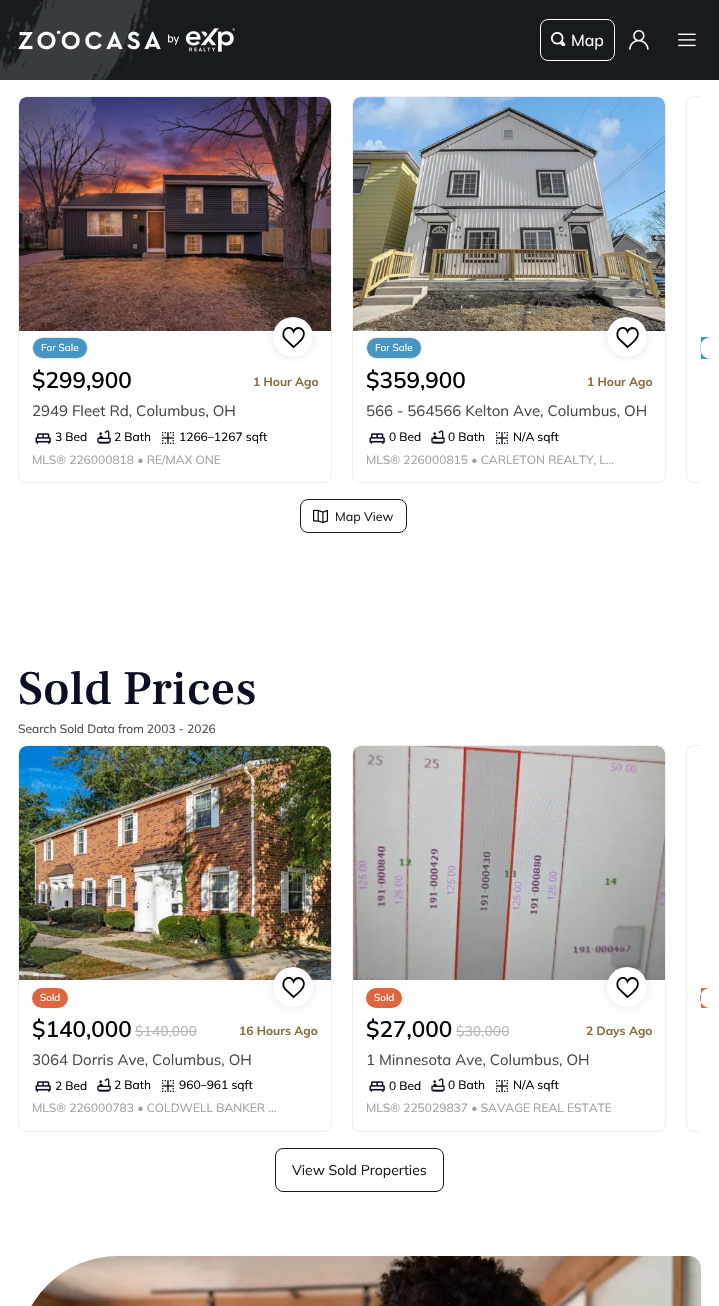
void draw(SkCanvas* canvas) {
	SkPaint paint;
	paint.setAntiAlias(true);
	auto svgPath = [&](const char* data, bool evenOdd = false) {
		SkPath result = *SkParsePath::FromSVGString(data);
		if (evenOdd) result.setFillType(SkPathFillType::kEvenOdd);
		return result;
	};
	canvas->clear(0xffffffff);
	paint.setColor(0xff181b1e);
	canvas->drawRect(SkRect::MakeXYWH(0, 0, 719, 80), paint);
	canvas->drawImageRect(SkImages::DeferredFromEncodedData(SkData::MakeFromFileName("img1.png")), SkRect::MakeXYWH(18, 28, 217, 24), SkSamplingOptions());
	paint.setStroke(true);
	paint.setStrokeWidth(1);
	paint.setColor(0xffffffff);
	canvas->drawRoundRect(SkRect::MakeXYWH(540.5, 19.5, 74, 41), 7.5, 7.5, paint);
	canvas->drawImageRect(SkImages::DeferredFromEncodedData(SkData::MakeFromFileName("img2.png")), SkRect::MakeXYWH(551, 32, 15, 14), SkSamplingOptions());
	SkFont f1(fontMgr->matchFamilyStyle("Mulish", SkFontStyle(200, SkFontStyle::kNormal_Width, SkFontStyle::kUpright_Slant)), 16);
	f1.setSubpixel(true);
	paint.setStroke(false);
	canvas->drawString("Map", 571, 46, f1, paint);
	canvas->drawImageRect(SkImages::DeferredFromEncodedData(SkData::MakeFromFileName("img3.png")), SkRect::MakeXYWH(629, 30, 20, 20), SkSamplingOptions());
	canvas->drawImageRect(SkImages::DeferredFromEncodedData(SkData::MakeFromFileName("img4.png")), SkRect::MakeXYWH(678, 33, 18, 14), SkSamplingOptions());
	paint.setStroke(true);
	paint.setColor(0xffefefef);
	canvas->drawRoundRect(SkRect::MakeXYWH(18.5, 96.5, 313, 386), 7.5, 7.5, paint);
	canvas->drawImageRect(SkImages::DeferredFromEncodedData(SkData::MakeFromFileName("img6.png")), SkRect::MakeXYWH(19, 97, 312, 234), SkSamplingOptions());
	canvas->drawImageRect(SkImages::DeferredFromEncodedData(SkData::MakeFromFileName("img5.png")), SkRect::MakeXYWH(0, 0, 151, 185), SkSamplingOptions());
	paint.setStroke(false);
	paint.setColor(0xff4695c4);
	canvas->drawRoundRect(SkRect::MakeXYWH(32.5, 337.5, 55, 21), 10.5, 10.5, paint);
	paint.setStroke(true);
	paint.setColor(0xffe7e7e9);
	canvas->drawRoundRect(SkRect::MakeXYWH(32.5, 337.5, 55, 21), 10.5, 10.5, paint);
	SkFont f2(fontMgr->matchFamilyStyle("Mulish", SkFontStyle(200, SkFontStyle::kNormal_Width, SkFontStyle::kUpright_Slant)), 10);
	f2.setSubpixel(true);
	paint.setStroke(false);
	paint.setColor(0xffffffff);
	canvas->drawString("For Sale", 41, 351, f2, paint);
	paint.setColor(0x1a000000);
	paint.setMaskFilter(SkMaskFilter::MakeBlur(kNormal_SkBlurStyle, 4));
	canvas->drawRoundRect(SkRect::MakeXYWH(273, 317, 40, 40), 20, 20, paint);
	paint.setMaskFilter(nullptr);
	paint.setColor(0xffffffff);
	canvas->drawCircle(293, 337, 20, paint);
	paint.setStroke(true);
	paint.setStrokeWidth(1.8);
	paint.setColor(0xff000000);
	canvas->drawPath(svgPath("M298.5 328C300 328 302 329 303 330.5C307 337 297.5 343.5 293.5 347L285 339C279 331 290 323 293.5 331.5C294.5 329.5 296 328 298.5 328Z"), paint);
	SkFont f3(fontMgr->matchFamilyStyle("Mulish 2", SkFontStyle(200, SkFontStyle::kNormal_Width, SkFontStyle::kUpright_Slant)), 22.5);
	f3.setSubpixel(true);
	paint.setStroke(false);
	canvas->drawString("$299,900", 32, 388, f3, paint);
	SkFont f4(fontMgr->matchFamilyStyle("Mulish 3", SkFontStyle(200, SkFontStyle::kNormal_Width, SkFontStyle::kUpright_Slant)), 12);
	f4.setSubpixel(true);
	paint.setColor(0xff886a3f);
	canvas->drawString("1 Hour Ago", 253, 386, f4, paint);
	SkFont f5(fontMgr->matchFamilyStyle("Mulish", SkFontStyle(200, SkFontStyle::kNormal_Width, SkFontStyle::kUpright_Slant)), 15);
	f5.setSubpixel(true);
	paint.setColor(0xff46484a);
	canvas->drawString("2949 Fleet Rd, Columbus, OH", 32, 416, f5, paint);
	canvas->drawImageRect(SkImages::DeferredFromEncodedData(SkData::MakeFromFileName("img7.png")), SkRect::MakeXYWH(35, 433, 16, 12), SkSamplingOptions());
	SkFont f6(fontMgr->matchFamilyStyle("Mulish", SkFontStyle(200, SkFontStyle::kNormal_Width, SkFontStyle::kUpright_Slant)), 12);
	f6.setSubpixel(true);
	paint.setColor(0xff000000);
	canvas->drawString("3 Bed", 55, 441, f6, paint);
	canvas->drawImageRect(SkImages::DeferredFromEncodedData(SkData::MakeFromFileName("img8.png")), SkRect::MakeXYWH(97, 430, 14, 14), SkSamplingOptions());
	canvas->drawString("2 Bath", 114, 441, f6, paint);
	canvas->drawImageRect(SkImages::DeferredFromEncodedData(SkData::MakeFromFileName("img9.png")), SkRect::MakeXYWH(161, 432, 13, 12), SkSamplingOptions());
	canvas->drawString("1266–1267 sqft", 179, 441, f6, paint);
	paint.setColor(0xff9f9f9f);
	canvas->drawString("MLS® 226000818 • RE/MAX ONE", 32, 464, f6, paint);
	paint.setStroke(true);
	paint.setStrokeWidth(1);
	paint.setColor(0xffefefef);
	canvas->drawRoundRect(SkRect::MakeXYWH(352.5, 96.5, 313, 386), 7.5, 7.5, paint);
	canvas->drawImageRect(SkImages::DeferredFromEncodedData(SkData::MakeFromFileName("img10.png")), SkRect::MakeXYWH(353, 97, 312, 234), SkSamplingOptions());
	paint.setStroke(false);
	paint.setColor(0xff4695c4);
	canvas->drawRoundRect(SkRect::MakeXYWH(366.5, 337.5, 55, 21), 10.5, 10.5, paint);
	paint.setStroke(true);
	paint.setColor(0xffe7e7e9);
	canvas->drawRoundRect(SkRect::MakeXYWH(366.5, 337.5, 55, 21), 10.5, 10.5, paint);
	paint.setStroke(false);
	paint.setColor(0xffffffff);
	canvas->drawString("For Sale", 375, 351, f2, paint);
	paint.setColor(0x1a000000);
	paint.setMaskFilter(SkMaskFilter::MakeBlur(kNormal_SkBlurStyle, 4));
	canvas->drawRoundRect(SkRect::MakeXYWH(607, 317, 40, 40), 20, 20, paint);
	paint.setMaskFilter(nullptr);
	paint.setColor(0xffffffff);
	canvas->drawCircle(627, 337, 20, paint);
	paint.setStroke(true);
	paint.setStrokeWidth(1.8);
	paint.setColor(0xff000000);
	canvas->drawPath(svgPath("M632.5 328C634 328 636 329 637 330.5C641 337 631.5 343.5 627.5 347L619 339C613 331 624 323 627.5 331.5C628.5 329.5 630 328 632.5 328Z"), paint);
	paint.setStroke(false);
	canvas->drawString("$359,900", 366, 388, f3, paint);
	paint.setColor(0xff886a3f);
	canvas->drawString("1 Hour Ago", 587, 386, f4, paint);
	paint.setColor(0xff46484a);
	canvas->drawString("566 - 564566 Kelton Ave, Columbus, OH", 366, 416, f5, paint);
	canvas->drawImageRect(SkImages::DeferredFromEncodedData(SkData::MakeFromFileName("img7.png")), SkRect::MakeXYWH(369, 433, 16, 12), SkSamplingOptions());
	paint.setColor(0xff000000);
	canvas->drawString("0 Bed", 389, 441, f6, paint);
	canvas->drawImageRect(SkImages::DeferredFromEncodedData(SkData::MakeFromFileName("img8.png")), SkRect::MakeXYWH(431, 430, 14, 14), SkSamplingOptions());
	canvas->drawString("0 Bath", 448, 441, f6, paint);
	canvas->drawImageRect(SkImages::DeferredFromEncodedData(SkData::MakeFromFileName("img9.png")), SkRect::MakeXYWH(495, 432, 13, 12), SkSamplingOptions());
	canvas->drawString("N/A sqft", 513, 441, f6, paint);
	paint.setColor(0xff9f9f9f);
	canvas->drawString("MLS® 226000815 • CARLETON REALTY, L…", 366, 464, f6, paint);
	canvas->save();
	canvas->clipRect(SkRect::MakeXYWH(18, 96, 683, 403));
	paint.setStroke(true);
	paint.setStrokeWidth(1);
	paint.setColor(0xffefefef);
	canvas->drawRoundRect(SkRect::MakeXYWH(686.5, 96.5, 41, 386), 7.5, 7.5, paint);
	canvas->restore();
	paint.setStroke(false);
	paint.setColor(0xff4695c4);
	canvas->drawPath(svgPath("M711 337H701V359H711C705 359 700 354 700 348C700 342 705 337 711 337Z"), paint);
	canvas->save();
	canvas->clipRect(SkRect::MakeXYWH(18, 96, 683, 403));
	paint.setStroke(true);
	paint.setColor(0xffe7e7e9);
	canvas->drawRoundRect(SkRect::MakeXYWH(700.5, 337.5, 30, 21), 10.5, 10.5, paint);
	canvas->restore();
	paint.setColor(0xff181b1e);
	canvas->drawRoundRect(SkRect::MakeXYWH(300.5, 499.5, 106, 33), 7.5, 7.5, paint);
	canvas->drawImageRect(SkImages::DeferredFromEncodedData(SkData::MakeFromFileName("img11.png")), SkRect::MakeXYWH(313, 509, 15, 15), SkSamplingOptions());
	SkFont f7(fontMgr->matchFamilyStyle("Mulish", SkFontStyle(200, SkFontStyle::kNormal_Width, SkFontStyle::kUpright_Slant)), 12.5);
	f7.setSubpixel(true);
	paint.setStroke(false);
	canvas->drawString("Map View", 335, 521, f7, paint);
	SkFont f8(fontMgr->matchFamilyStyle("Frank Ruhl Libre", SkFontStyle(500, SkFontStyle::kNormal_Width, SkFontStyle::kUpright_Slant)), 48);
	f8.setSubpixel(true);
	paint.setColor(0xff0c0f24);
	canvas->drawString("Sold Prices", 18, 704, f8, paint);
	paint.setColor(0xff46484a);
	canvas->drawString("Search Sold Data from 2003 - 2026", 18, 733, f6, paint);
	paint.setStroke(true);
	paint.setColor(0xffefefef);
	canvas->drawRoundRect(SkRect::MakeXYWH(18.5, 745.5, 313, 386), 7.5, 7.5, paint);
	canvas->drawImageRect(SkImages::DeferredFromEncodedData(SkData::MakeFromFileName("img12.png")), SkRect::MakeXYWH(19, 746, 312, 234), SkSamplingOptions());
	paint.setStroke(false);
	paint.setColor(0xffdf6541);
	canvas->drawRoundRect(SkRect::MakeXYWH(32, 988, 36, 20), 10, 10, paint);
	paint.setColor(0xffffffff);
	canvas->drawString("Sold", 40, 1001, f2, paint);
	paint.setColor(0x1a000000);
	paint.setMaskFilter(SkMaskFilter::MakeBlur(kNormal_SkBlurStyle, 4));
	canvas->drawRoundRect(SkRect::MakeXYWH(273, 967, 40, 40), 20, 20, paint);
	paint.setMaskFilter(nullptr);
	paint.setColor(0xffffffff);
	canvas->drawCircle(293, 987, 20, paint);
	paint.setStroke(true);
	paint.setStrokeWidth(1.8);
	paint.setColor(0xff000000);
	canvas->drawPath(svgPath("M298.5 978C300 978 302 979 303 980.5C307 987 297.5 993.5 293.5 997L285 989C279 981 290 973 293.5 981.5C294.5 979.5 296 978 298.5 978Z"), paint);
	paint.setStroke(false);
	canvas->drawString("$140,000", 32, 1037, f3, paint);
	SkFont f9(fontMgr->matchFamilyStyle("Mulish", SkFontStyle(200, SkFontStyle::kNormal_Width, SkFontStyle::kUpright_Slant)), 14);
	f9.setSubpixel(true);
	paint.setColor(0xffb6b5b5);
	canvas->drawString("$140,000", 135, 1036, f9, paint);
	canvas->drawRect(SkRect::MakeXYWH(135, 1031, 62, 1), paint);
	paint.setColor(0xff886a3f);
	canvas->drawString("16 Hours Ago", 239, 1035, f4, paint);
	paint.setColor(0xff46484a);
	canvas->drawString("3064 Dorris Ave, Columbus, OH", 32, 1065, f5, paint);
	canvas->drawImageRect(SkImages::DeferredFromEncodedData(SkData::MakeFromFileName("img7.png")), SkRect::MakeXYWH(35, 1081, 16, 12), SkSamplingOptions());
	paint.setColor(0xff000000);
	canvas->drawString("2 Bed", 55, 1090, f6, paint);
	canvas->drawImageRect(SkImages::DeferredFromEncodedData(SkData::MakeFromFileName("img8.png")), SkRect::MakeXYWH(97, 1078, 14, 14), SkSamplingOptions());
	canvas->drawString("2 Bath", 114, 1089, f6, paint);
	canvas->drawImageRect(SkImages::DeferredFromEncodedData(SkData::MakeFromFileName("img9.png")), SkRect::MakeXYWH(161, 1080, 13, 12), SkSamplingOptions());
	canvas->drawString("960–961 sqft", 179, 1089, f6, paint);
	paint.setColor(0xff9f9f9f);
	canvas->drawString("MLS® 226000783 • COLDWELL BANKER …", 32, 1112, f6, paint);
	paint.setStroke(true);
	paint.setStrokeWidth(1);
	paint.setColor(0xffefefef);
	canvas->drawRoundRect(SkRect::MakeXYWH(352.5, 745.5, 313, 386), 7.5, 7.5, paint);
	canvas->drawImageRect(SkImages::DeferredFromEncodedData(SkData::MakeFromFileName("img13.png")), SkRect::MakeXYWH(353, 746, 312, 234), SkSamplingOptions());
	paint.setStroke(false);
	paint.setColor(0xffdf6541);
	canvas->drawRoundRect(SkRect::MakeXYWH(366, 988, 36, 20), 10, 10, paint);
	paint.setColor(0xffffffff);
	canvas->drawString("Sold", 374, 1001, f2, paint);
	paint.setColor(0x1a000000);
	paint.setMaskFilter(SkMaskFilter::MakeBlur(kNormal_SkBlurStyle, 4));
	canvas->drawRoundRect(SkRect::MakeXYWH(607, 967, 40, 40), 20, 20, paint);
	paint.setMaskFilter(nullptr);
	paint.setColor(0xffffffff);
	canvas->drawCircle(627, 987, 20, paint);
	paint.setStroke(true);
	paint.setStrokeWidth(1.8);
	paint.setColor(0xff000000);
	canvas->drawPath(svgPath("M632.5 978C634 978 636 979 637 980.5C641 987 631.5 993.5 627.5 997L619 989C613 981 624 973 627.5 981.5C628.5 979.5 630 978 632.5 978Z"), paint);
	paint.setStroke(false);
	canvas->drawString("$27,000", 366, 1037, f3, paint);
	paint.setColor(0xffb6b5b5);
	canvas->drawString("$30,000", 456, 1036, f9, paint);
	canvas->drawRect(SkRect::MakeXYWH(456, 1031, 53, 1), paint);
	paint.setColor(0xff886a3f);
	canvas->drawString("2 Days Ago", 586, 1035, f4, paint);
	paint.setColor(0xff46484a);
	canvas->drawString("1 Minnesota Ave, Columbus, OH", 366, 1065, f5, paint);
	canvas->drawImageRect(SkImages::DeferredFromEncodedData(SkData::MakeFromFileName("img7.png")), SkRect::MakeXYWH(369, 1081, 16, 12), SkSamplingOptions());
	paint.setColor(0xff000000);
	canvas->drawString("0 Bed", 389, 1090, f6, paint);
	canvas->drawImageRect(SkImages::DeferredFromEncodedData(SkData::MakeFromFileName("img8.png")), SkRect::MakeXYWH(431, 1078, 14, 14), SkSamplingOptions());
	canvas->drawString("0 Bath", 448, 1089, f6, paint);
	canvas->drawImageRect(SkImages::DeferredFromEncodedData(SkData::MakeFromFileName("img9.png")), SkRect::MakeXYWH(495, 1080, 13, 12), SkSamplingOptions());
	canvas->drawString("N/A sqft", 513, 1089, f6, paint);
	paint.setColor(0xff9f9f9f);
	canvas->drawString("MLS® 225029837 • SAVAGE REAL ESTATE", 366, 1112, f6, paint);
	canvas->save();
	canvas->clipRect(SkRect::MakeXYWH(18, 745, 683, 403));
	paint.setStroke(true);
	paint.setStrokeWidth(1);
	paint.setColor(0xffefefef);
	canvas->drawRoundRect(SkRect::MakeXYWH(686.5, 745.5, 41, 386), 7.5, 7.5, paint);
	canvas->restore();
	paint.setStroke(false);
	paint.setColor(0xffdf6541);
	canvas->drawPath(svgPath("M710 988H701V1008H710C704.5 1008 700 1003.5 700 998C700 992.5 704.5 988 710 988Z"), paint);
	paint.setStroke(true);
	paint.setColor(0xff181b1e);
	canvas->drawRoundRect(SkRect::MakeXYWH(275.5, 1148.5, 168, 43), 7.5, 7.5, paint);
	paint.setStroke(false);
	canvas->drawString("View Sold Properties", 292, 1175, f9, paint);
	paint.setColor(0xfff6f6f6);
	canvas->drawPath(svgPath("M118 1256H689C695.5 1256 701 1261.5 701 1268V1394C701 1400.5 695.5 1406 689 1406H30C23.5 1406 18 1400.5 18 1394V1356C18 1301 63 1256 118 1256Z"), paint);
	canvas->drawImageRect(SkImages::DeferredFromEncodedData(SkData::MakeFromFileName("img14.png")), SkRect::MakeXYWH(31, 1256, 670, 50), SkSamplingOptions());
}
